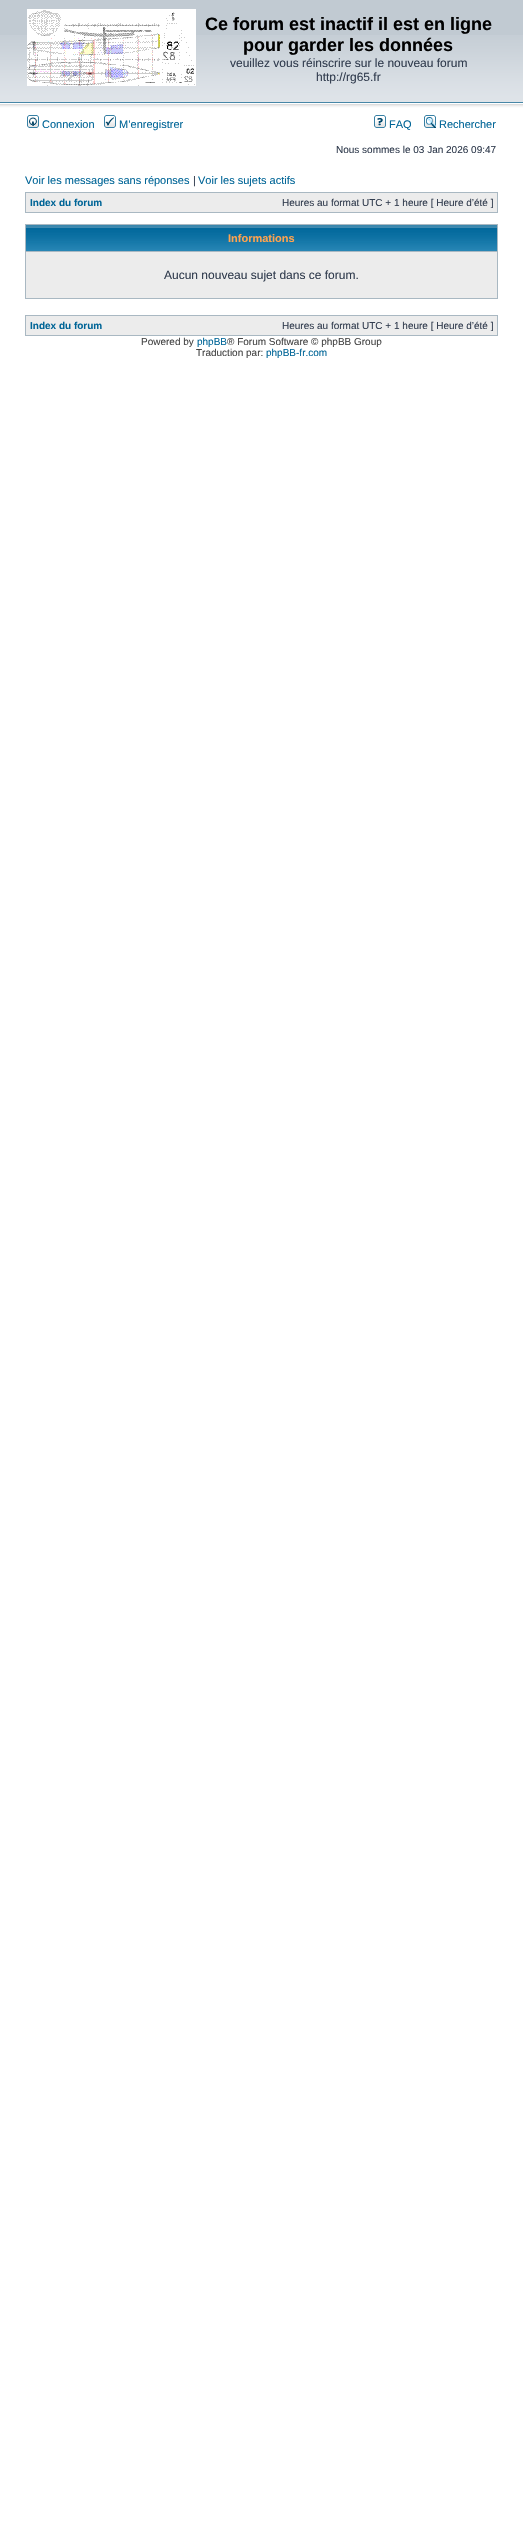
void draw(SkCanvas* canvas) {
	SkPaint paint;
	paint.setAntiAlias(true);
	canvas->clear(0xffffffff);
	paint.setColor(0xffc1cad2);
	canvas->drawRect(SkRect::MakeXYWH(0, 0, 523, 35), paint);
	canvas->drawImageRect(SkImages::DeferredFromEncodedData(SkData::MakeFromFileName("img1.png")), SkRect::MakeXYWH(0, 35, 523, 78), SkSamplingOptions());
	canvas->drawImageRect(SkImages::DeferredFromEncodedData(SkData::MakeFromFileName("img2.png")), SkRect::MakeXYWH(27, 9, 169, 77), SkSamplingOptions());
	SkFont f1(fontMgr->matchFamilyStyle("Liberation Sans", SkFontStyle::Bold()), 18);
	f1.setSubpixel(true);
	paint.setColor(0xff000000);
	canvas->drawString("Ce forum est inactif il est en ligne", 205, 30, f1, paint);
	canvas->drawString("pour garder les données", 243, 51, f1, paint);
	SkFont f2(fontMgr->matchFamilyStyle("Liberation Sans", SkFontStyle::Normal()), 12);
	f2.setSubpixel(true);
	paint.setColor(0xff323d4f);
	canvas->drawString("veuillez vous réinscrire sur le nouveau forum", 230, 67, f2, paint);
	canvas->drawString("http://rg65.fr", 316, 81, f2, paint);
	canvas->drawImageRect(SkImages::DeferredFromEncodedData(SkData::MakeFromFileName("img3.png")), SkRect::MakeXYWH(27, 115, 12, 13), SkSamplingOptions());
	SkFont f3(fontMgr->matchFamilyStyle("Liberation Sans", SkFontStyle::Normal()), 11);
	f3.setSubpixel(true);
	paint.setColor(0xff006597);
	canvas->drawString("Connexion", 42, 128, f3, paint);
	canvas->drawImageRect(SkImages::DeferredFromEncodedData(SkData::MakeFromFileName("img4.png")), SkRect::MakeXYWH(104, 115, 12, 13), SkSamplingOptions());
	canvas->drawString("M’enregistrer", 119, 128, f3, paint);
	canvas->drawImageRect(SkImages::DeferredFromEncodedData(SkData::MakeFromFileName("img5.png")), SkRect::MakeXYWH(374, 115, 12, 13), SkSamplingOptions());
	canvas->drawString("FAQ", 389, 128, f3, paint);
	canvas->drawImageRect(SkImages::DeferredFromEncodedData(SkData::MakeFromFileName("img6.png")), SkRect::MakeXYWH(424, 115, 12, 13), SkSamplingOptions());
	canvas->drawString("Rechercher", 439, 128, f3, paint);
	SkFont f4(fontMgr->matchFamilyStyle("Liberation Sans", SkFontStyle::Normal()), 10);
	f4.setSubpixel(true);
	paint.setColor(0xff323d4f);
	canvas->drawString("Nous sommes le 03 Jan 2026 09:47", 336, 153, f4, paint);
	paint.setColor(0xff006597);
	canvas->drawString("Voir les messages sans réponses", 25, 184, f3, paint);
	paint.setColor(0xff323d4f);
	canvas->drawString("|", 193, 184, f3, paint);
	paint.setColor(0xff006597);
	canvas->drawString("Voir les sujets actifs", 198, 184, f3, paint);
	paint.setColor(0xffa9b8c2);
	canvas->drawRect(SkRect::MakeXYWH(25, 192, 473, 21), paint);
	paint.setColor(0xffececec);
	canvas->drawRect(SkRect::MakeXYWH(26, 193, 471, 19), paint);
	SkFont f5(fontMgr->matchFamilyStyle("Liberation Sans", SkFontStyle::Bold()), 10);
	f5.setSubpixel(true);
	paint.setColor(0xff006597);
	canvas->drawString("Index du forum", 30, 206, f5, paint);
	paint.setColor(0xff323d4f);
	canvas->drawString("Heures au format UTC + 1 heure [ Heure d’été ]", 282, 206, f4, paint);
	paint.setColor(0xffa9b8c2);
	canvas->drawRect(SkRect::MakeXYWH(25, 224, 473, 75), paint);
	canvas->drawImageRect(SkImages::DeferredFromEncodedData(SkData::MakeFromFileName("img7.png")), SkRect::MakeXYWH(26, 225, 471, 26), SkSamplingOptions());
	SkFont f6(fontMgr->matchFamilyStyle("Liberation Sans", SkFontStyle::Bold()), 11);
	f6.setSubpixel(true);
	paint.setColor(0xffffa34f);
	canvas->drawString("Informations", 228, 242, f6, paint);
	paint.setColor(0xffececec);
	canvas->drawRect(SkRect::MakeXYWH(26, 252, 471, 46), paint);
	paint.setColor(0xff323d4f);
	canvas->drawString("Aucun nouveau sujet dans ce forum.", 164, 279, f2, paint);
	paint.setColor(0xffa9b8c2);
	canvas->drawRect(SkRect::MakeXYWH(25, 315, 473, 21), paint);
	paint.setColor(0xffececec);
	canvas->drawRect(SkRect::MakeXYWH(26, 316, 471, 19), paint);
	paint.setColor(0xff006597);
	canvas->drawString("Index du forum", 30, 329, f5, paint);
	paint.setColor(0xff323d4f);
	canvas->drawString("Heures au format UTC + 1 heure [ Heure d’été ]", 282, 329, f4, paint);
	paint.setColor(0xff444444);
	canvas->drawString("Powered by", 141, 345, f4, paint);
	paint.setColor(0xff006597);
	canvas->drawString("phpBB", 197, 345, f4, paint);
	paint.setColor(0xff444444);
	canvas->drawString("® Forum Software © phpBB Group", 227, 345, f4, paint);
	canvas->drawString("Traduction par:", 196, 356, f4, paint);
	paint.setColor(0xff006597);
	canvas->drawString("phpBB-fr.com", 266, 356, f4, paint);
}
